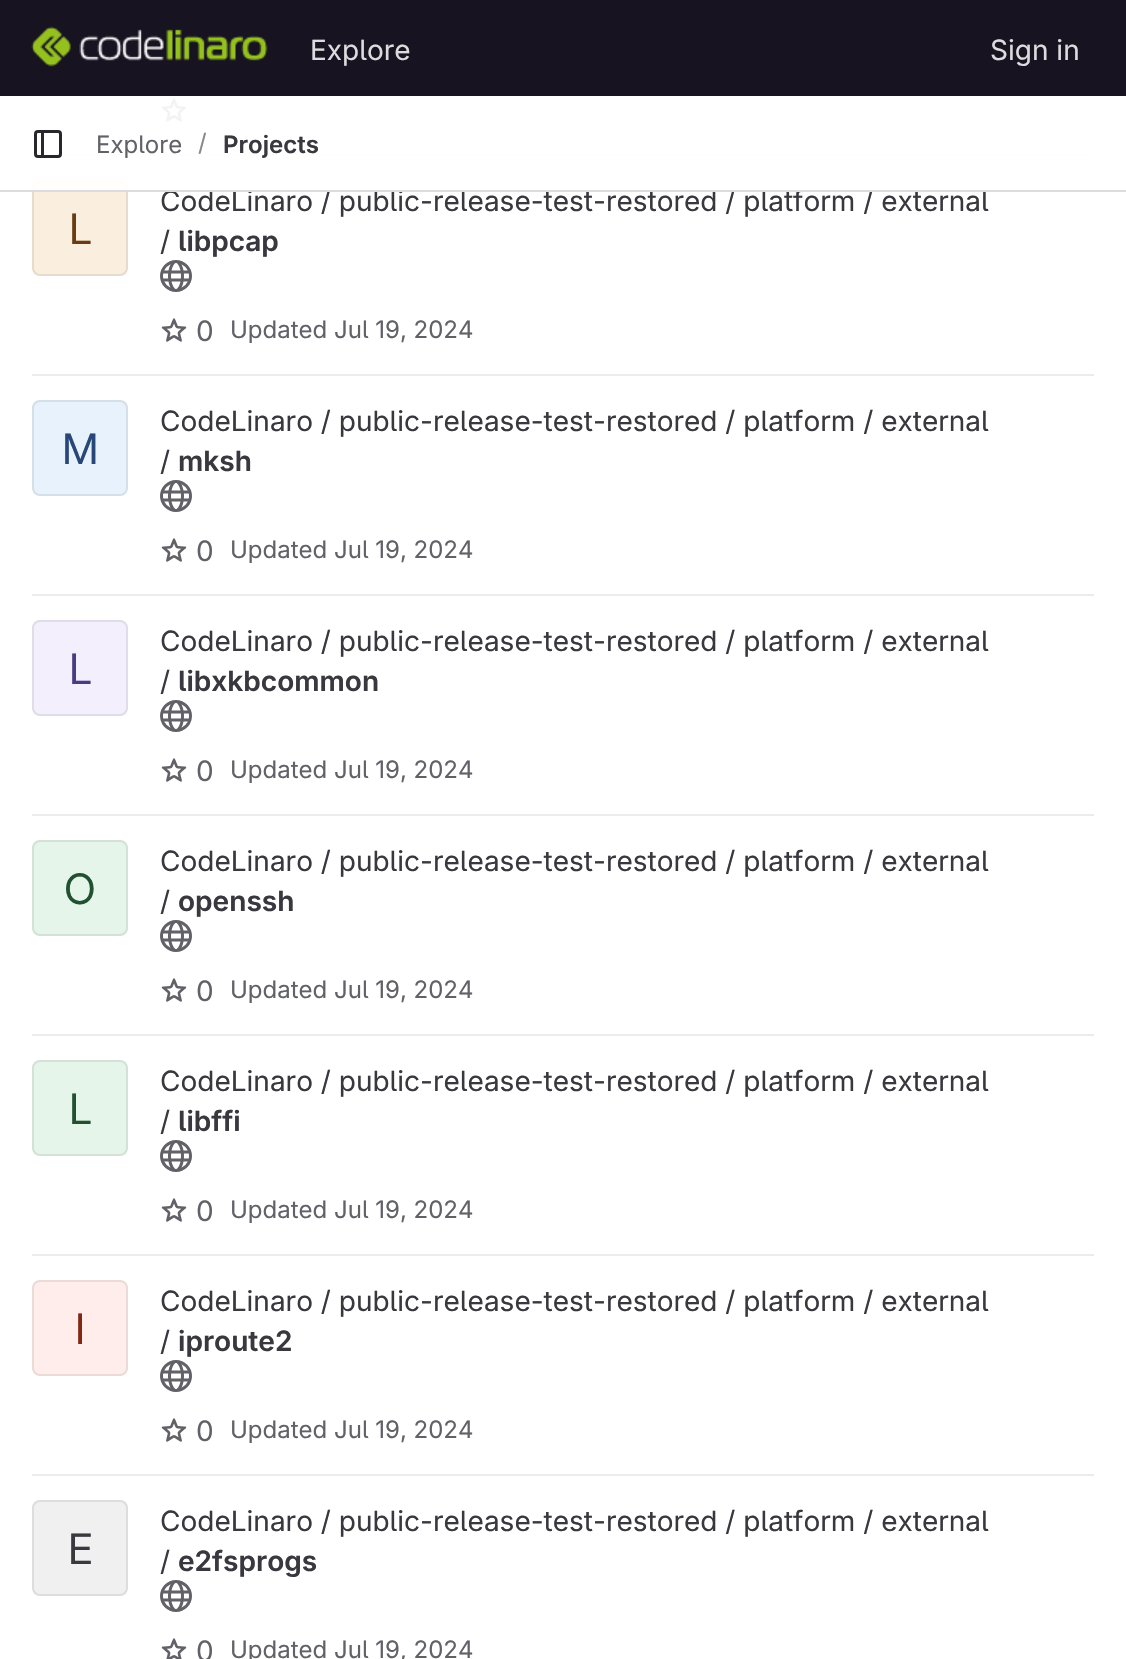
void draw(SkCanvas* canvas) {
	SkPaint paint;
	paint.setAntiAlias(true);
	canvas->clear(0xffffffff);
	paint.setColor(0xff171321);
	canvas->drawRect(SkRect::MakeXYWH(0, 0, 1126, 96), paint);
	canvas->drawImageRect(SkImages::DeferredFromEncodedData(SkData::MakeFromFileName("img1.png")), SkRect::MakeXYWH(31, 26, 237, 41), SkSamplingOptions());
	SkFont f1(fontMgr->matchFamilyStyle("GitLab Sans", SkFontStyle::Normal()), 28);
	f1.setSubpixel(true);
	paint.setColor(0xffdcdcde);
	canvas->drawString("Explore", 310, 60, f1, paint);
	canvas->drawString("Sign in", 990, 60, f1, paint);
	paint.setColor(0xffececef);
	canvas->drawRect(SkRect::MakeXYWH(32, 154, 1062, 2), paint);
	canvas->drawImageRect(SkImages::DeferredFromEncodedData(SkData::MakeFromFileName("img3.png")), SkRect::MakeXYWH(161, 98, 26, 24), SkSamplingOptions());
	paint.setColor(0xfffaefde);
	canvas->drawRoundRect(SkRect::MakeXYWH(32, 180, 96, 96), 8, 8, paint);
	paint.setStroke(true);
	paint.setStrokeWidth(2);
	paint.setColor(0x14050506);
	canvas->drawRoundRect(SkRect::MakeXYWH(33, 181, 94, 94), 7, 7, paint);
	paint.setStroke(false);
	paint.setColor(0xff3a383f);
	canvas->drawString("CodeLinaro / public-release-test-restored / platform / external", 160, 211, f1, paint);
	paint.setColor(0xebffffff);
	canvas->drawRect(SkRect::MakeXYWH(32, 98, 1062, 92), paint);
	paint.setColor(0xffdcdcde);
	canvas->drawRect(SkRect::MakeXYWH(0, 190, 1126, 2), paint);
	canvas->drawImageRect(SkImages::DeferredFromEncodedData(SkData::MakeFromFileName("img2.png")), SkRect::MakeXYWH(34, 130, 28, 28), SkSamplingOptions());
	SkFont f2(fontMgr->matchFamilyStyle("GitLab Sans", SkFontStyle::Normal()), 24);
	f2.setSubpixel(true);
	paint.setColor(0xff626168);
	canvas->drawString("Explore", 96, 153, f2, paint);
	paint.setColor(0xff89888d);
	canvas->drawString("/", 198, 151, f2, paint);
	SkFont f3(fontMgr->matchFamilyStyle("GitLab Sans", SkFontStyle(600, SkFontStyle::kNormal_Width, SkFontStyle::kUpright_Slant)), 24);
	f3.setSubpixel(true);
	paint.setColor(0xff3a383f);
	canvas->drawString("Projects", 223, 153, f3, paint);
	paint.setColor(0xffececef);
	canvas->drawRect(SkRect::MakeXYWH(32, 374, 1062, 2), paint);
	SkFont f4(fontMgr->matchFamilyStyle("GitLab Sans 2", SkFontStyle::Normal()), 42);
	f4.setSubpixel(true);
	paint.setColor(0xff693c14);
	canvas->drawString("L", 69, 244, f4, paint);
	paint.setColor(0xff3a383f);
	canvas->drawString("/", 160, 251, f1, paint);
	SkFont f5(fontMgr->matchFamilyStyle("GitLab Sans", SkFontStyle(600, SkFontStyle::kNormal_Width, SkFontStyle::kUpright_Slant)), 28);
	f5.setSubpixel(true);
	canvas->drawString("libpcap", 178, 251, f5, paint);
	canvas->drawImageRect(SkImages::DeferredFromEncodedData(SkData::MakeFromFileName("img4.png")), SkRect::MakeXYWH(160, 260, 32, 32), SkSamplingOptions());
	canvas->drawImageRect(SkImages::DeferredFromEncodedData(SkData::MakeFromFileName("img3.png")), SkRect::MakeXYWH(161, 318, 26, 24), SkSamplingOptions());
	paint.setColor(0xff626168);
	canvas->drawString("0", 196, 341, f1, paint);
	canvas->drawString("Updated Jul 19, 2024", 230, 338, f2, paint);
	paint.setColor(0xffececef);
	canvas->drawRect(SkRect::MakeXYWH(32, 594, 1062, 2), paint);
	paint.setColor(0xffe7f2fc);
	canvas->drawRoundRect(SkRect::MakeXYWH(32, 400, 96, 96), 8, 8, paint);
	paint.setStroke(true);
	paint.setColor(0x14050506);
	canvas->drawRoundRect(SkRect::MakeXYWH(33, 401, 94, 94), 7, 7, paint);
	paint.setStroke(false);
	paint.setColor(0xff284779);
	canvas->drawString("M", 62, 464, f4, paint);
	paint.setColor(0xff3a383f);
	canvas->drawString("CodeLinaro / public-release-test-restored / platform / external", 160, 431, f1, paint);
	canvas->drawString("/", 160, 471, f1, paint);
	canvas->drawString("mksh", 178, 471, f5, paint);
	canvas->drawImageRect(SkImages::DeferredFromEncodedData(SkData::MakeFromFileName("img4.png")), SkRect::MakeXYWH(160, 480, 32, 32), SkSamplingOptions());
	canvas->drawImageRect(SkImages::DeferredFromEncodedData(SkData::MakeFromFileName("img3.png")), SkRect::MakeXYWH(161, 538, 26, 24), SkSamplingOptions());
	paint.setColor(0xff626168);
	canvas->drawString("0", 196, 561, f1, paint);
	canvas->drawString("Updated Jul 19, 2024", 230, 558, f2, paint);
	paint.setColor(0xffececef);
	canvas->drawRect(SkRect::MakeXYWH(32, 814, 1062, 2), paint);
	paint.setColor(0xfff3effc);
	canvas->drawRoundRect(SkRect::MakeXYWH(32, 620, 96, 96), 8, 8, paint);
	paint.setStroke(true);
	paint.setColor(0x14050506);
	canvas->drawRoundRect(SkRect::MakeXYWH(33, 621, 94, 94), 7, 7, paint);
	paint.setStroke(false);
	paint.setColor(0xff493c83);
	canvas->drawString("L", 69, 684, f4, paint);
	paint.setColor(0xff3a383f);
	canvas->drawString("CodeLinaro / public-release-test-restored / platform / external", 160, 651, f1, paint);
	canvas->drawString("/", 160, 691, f1, paint);
	canvas->drawString("libxkbcommon", 178, 691, f5, paint);
	canvas->drawImageRect(SkImages::DeferredFromEncodedData(SkData::MakeFromFileName("img5.png")), SkRect::MakeXYWH(160, 700, 32, 32), SkSamplingOptions());
	canvas->drawImageRect(SkImages::DeferredFromEncodedData(SkData::MakeFromFileName("img3.png")), SkRect::MakeXYWH(161, 758, 26, 24), SkSamplingOptions());
	paint.setColor(0xff626168);
	canvas->drawString("0", 196, 781, f1, paint);
	canvas->drawString("Updated Jul 19, 2024", 230, 778, f2, paint);
	paint.setColor(0xffececef);
	canvas->drawRect(SkRect::MakeXYWH(32, 1034, 1062, 2), paint);
	paint.setColor(0xffe5f5ea);
	canvas->drawRoundRect(SkRect::MakeXYWH(32, 840, 96, 96), 8, 8, paint);
	paint.setStroke(true);
	paint.setColor(0x14050506);
	canvas->drawRoundRect(SkRect::MakeXYWH(33, 841, 94, 94), 7, 7, paint);
	paint.setStroke(false);
	paint.setColor(0xff225131);
	canvas->drawString("O", 64, 904, f4, paint);
	paint.setColor(0xff3a383f);
	canvas->drawString("CodeLinaro / public-release-test-restored / platform / external", 160, 871, f1, paint);
	canvas->drawString("/", 160, 911, f1, paint);
	canvas->drawString("openssh", 178, 911, f5, paint);
	canvas->drawImageRect(SkImages::DeferredFromEncodedData(SkData::MakeFromFileName("img4.png")), SkRect::MakeXYWH(160, 920, 32, 32), SkSamplingOptions());
	canvas->drawImageRect(SkImages::DeferredFromEncodedData(SkData::MakeFromFileName("img3.png")), SkRect::MakeXYWH(161, 978, 26, 24), SkSamplingOptions());
	paint.setColor(0xff626168);
	canvas->drawString("0", 196, 1001, f1, paint);
	canvas->drawString("Updated Jul 19, 2024", 230, 998, f2, paint);
	paint.setColor(0xffececef);
	canvas->drawRect(SkRect::MakeXYWH(32, 1254, 1062, 2), paint);
	paint.setColor(0xffe5f5ea);
	canvas->drawRoundRect(SkRect::MakeXYWH(32, 1060, 96, 96), 8, 8, paint);
	paint.setStroke(true);
	paint.setColor(0x14050506);
	canvas->drawRoundRect(SkRect::MakeXYWH(33, 1061, 94, 94), 7, 7, paint);
	paint.setStroke(false);
	paint.setColor(0xff225131);
	canvas->drawString("L", 69, 1124, f4, paint);
	paint.setColor(0xff3a383f);
	canvas->drawString("CodeLinaro / public-release-test-restored / platform / external", 160, 1091, f1, paint);
	canvas->drawString("/", 160, 1131, f1, paint);
	canvas->drawString("libffi", 178, 1131, f5, paint);
	canvas->drawImageRect(SkImages::DeferredFromEncodedData(SkData::MakeFromFileName("img4.png")), SkRect::MakeXYWH(160, 1140, 32, 32), SkSamplingOptions());
	canvas->drawImageRect(SkImages::DeferredFromEncodedData(SkData::MakeFromFileName("img3.png")), SkRect::MakeXYWH(161, 1198, 26, 24), SkSamplingOptions());
	paint.setColor(0xff626168);
	canvas->drawString("0", 196, 1221, f1, paint);
	canvas->drawString("Updated Jul 19, 2024", 230, 1218, f2, paint);
	paint.setColor(0xffececef);
	canvas->drawRect(SkRect::MakeXYWH(32, 1474, 1062, 2), paint);
	paint.setColor(0xfffeedeb);
	canvas->drawRoundRect(SkRect::MakeXYWH(32, 1280, 96, 96), 8, 8, paint);
	paint.setStroke(true);
	paint.setColor(0x14050506);
	canvas->drawRoundRect(SkRect::MakeXYWH(33, 1281, 94, 94), 7, 7, paint);
	paint.setStroke(false);
	paint.setColor(0xff812713);
	canvas->drawString("I", 75, 1344, f4, paint);
	paint.setColor(0xff3a383f);
	canvas->drawString("CodeLinaro / public-release-test-restored / platform / external", 160, 1311, f1, paint);
	canvas->drawString("/", 160, 1351, f1, paint);
	canvas->drawString("iproute2", 178, 1351, f5, paint);
	canvas->drawImageRect(SkImages::DeferredFromEncodedData(SkData::MakeFromFileName("img4.png")), SkRect::MakeXYWH(160, 1360, 32, 32), SkSamplingOptions());
	canvas->drawImageRect(SkImages::DeferredFromEncodedData(SkData::MakeFromFileName("img3.png")), SkRect::MakeXYWH(161, 1418, 26, 24), SkSamplingOptions());
	paint.setColor(0xff626168);
	canvas->drawString("0", 196, 1441, f1, paint);
	canvas->drawString("Updated Jul 19, 2024", 230, 1438, f2, paint);
	paint.setColor(0xfff0f0f1);
	canvas->drawRoundRect(SkRect::MakeXYWH(32, 1500, 96, 96), 8, 8, paint);
	paint.setStroke(true);
	paint.setColor(0x14050506);
	canvas->drawRoundRect(SkRect::MakeXYWH(33, 1501, 94, 94), 7, 7, paint);
	paint.setStroke(false);
	paint.setColor(0xff3a383f);
	canvas->drawString("E", 68, 1564, f4, paint);
	canvas->drawString("CodeLinaro / public-release-test-restored / platform / external", 160, 1531, f1, paint);
	canvas->drawString("/", 160, 1571, f1, paint);
	canvas->drawString("e2fsprogs", 178, 1571, f5, paint);
	canvas->drawImageRect(SkImages::DeferredFromEncodedData(SkData::MakeFromFileName("img4.png")), SkRect::MakeXYWH(160, 1580, 32, 32), SkSamplingOptions());
	canvas->drawImageRect(SkImages::DeferredFromEncodedData(SkData::MakeFromFileName("img6.png")), SkRect::MakeXYWH(161, 1638, 26, 21), SkSamplingOptions());
	paint.setColor(0xff626168);
	canvas->drawString("0", 196, 1661, f1, paint);
	canvas->drawString("Updated Jul 19, 2024", 230, 1658, f2, paint);
}
